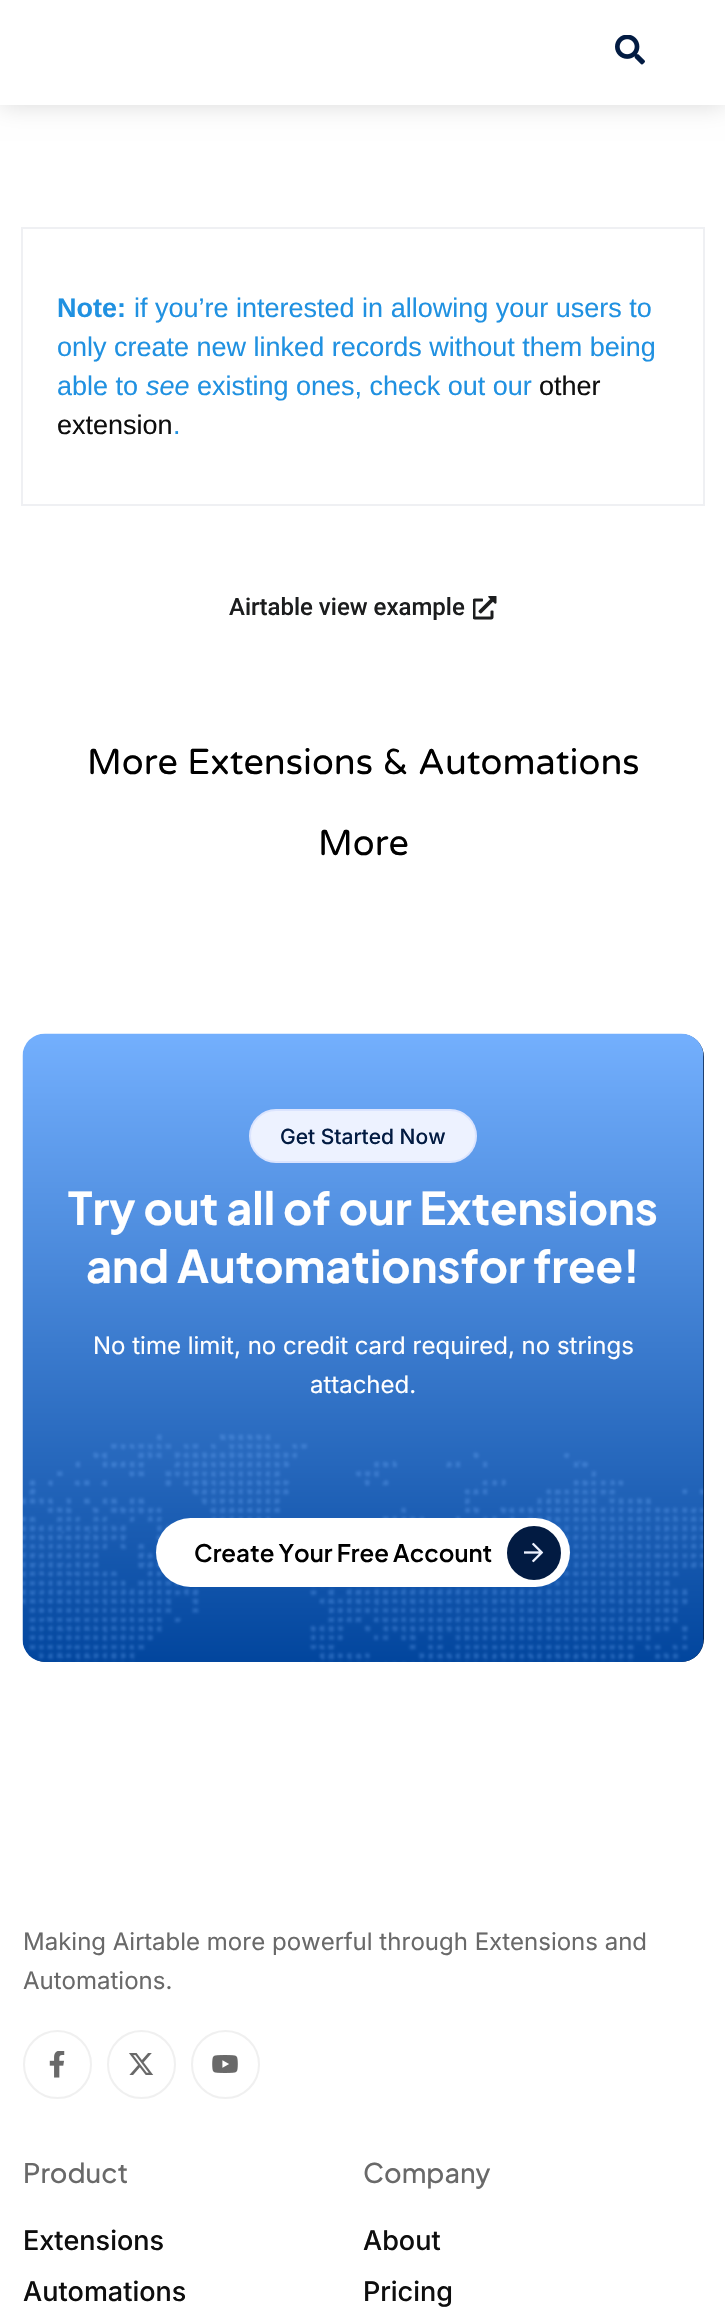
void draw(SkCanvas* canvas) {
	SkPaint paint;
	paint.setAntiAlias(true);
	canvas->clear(0xffffffff);
	paint.setColor(0x26000000);
	paint.setMaskFilter(SkMaskFilter::MakeBlur(kNormal_SkBlurStyle, 12));
	canvas->drawRect(SkRect::MakeXYWH(0, 0, 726, 105), paint);
	paint.setMaskFilter(nullptr);
	paint.setColor(0xffffffff);
	canvas->drawRect(SkRect::MakeXYWH(0, 0, 725, 105), paint);
	canvas->drawImageRect(SkImages::DeferredFromEncodedData(SkData::MakeFromFileName("img1.png")), SkRect::MakeXYWH(615, 35, 30, 30), SkSamplingOptions());
	paint.setStroke(true);
	paint.setStrokeWidth(2);
	paint.setColor(0xffeff0f3);
	canvas->drawRect(SkRect::MakeXYWH(22, 228, 682, 277), paint);
	SkFont f1(fontMgr->matchFamilyStyle("Liberation Sans", SkFontStyle::Bold()), 27);
	f1.setSubpixel(true);
	paint.setStroke(false);
	paint.setColor(0xff2091e1);
	canvas->drawString("Note:", 57, 317, f1, paint);
	SkFont f2(fontMgr->matchFamilyStyle("Liberation Sans", SkFontStyle::Normal()), 27);
	f2.setSubpixel(true);
	canvas->drawString("if you’re interested in allowing your users to", 134, 317, f2, paint);
	canvas->drawString("only create new linked records without them being", 57, 356, f2, paint);
	canvas->drawString("able to", 57, 395, f2, paint);
	SkFont f3(fontMgr->matchFamilyStyle("Liberation Sans", SkFontStyle::Italic()), 27);
	f3.setSubpixel(true);
	canvas->drawString("see", 146, 395, f3, paint);
	canvas->drawString("existing ones, check out our", 197, 395, f2, paint);
	paint.setColor(0xff0e0e0e);
	canvas->drawString("other", 539, 395, f2, paint);
	canvas->drawString("extension", 57, 434, f2, paint);
	paint.setColor(0xff2091e1);
	canvas->drawString(".", 173, 434, f2, paint);
	SkFont f4(fontMgr->matchFamilyStyle("Roboto", SkFontStyle(500, SkFontStyle::kNormal_Width, SkFontStyle::kUpright_Slant)), 24);
	f4.setSubpixel(true);
	paint.setColor(0xff1c1d1e);
	canvas->drawString("Airtable view example", 229, 615, f4, paint);
	canvas->drawImageRect(SkImages::DeferredFromEncodedData(SkData::MakeFromFileName("img2.png")), SkRect::MakeXYWH(473, 596, 24, 24), SkSamplingOptions());
	SkFont f5(fontMgr->matchFamilyStyle("Varela Round", SkFontStyle::Normal()), 36);
	f5.setSubpixel(true);
	paint.setColor(0xff000000);
	canvas->drawString("More Extensions & Automations", 87, 774, f5, paint);
	canvas->drawString("More", 318, 855, f5, paint);
	paint.setColor(0xff021b42);
	canvas->drawRoundRect(SkRect::MakeXYWH(23, 1034, 681, 628), 23, 23, paint);
	canvas->drawImageRect(SkImages::DeferredFromEncodedData(SkData::MakeFromFileName("img3.png")), SkRect::MakeXYWH(22, 1033, 682, 629), SkSamplingOptions());
	paint.setColor(0xffedf2ff);
	canvas->drawRoundRect(SkRect::MakeXYWH(249, 1109, 228, 54), 27, 27, paint);
	paint.setStroke(true);
	paint.setColor(0x1a3a6ef2);
	canvas->drawRoundRect(SkRect::MakeXYWH(250, 1110, 226, 52), 26, 26, paint);
	SkFont f6(fontMgr->matchFamilyStyle("Inter", SkFontStyle(500, SkFontStyle::kNormal_Width, SkFontStyle::kUpright_Slant)), 21);
	f6.setSubpixel(true);
	paint.setStroke(false);
	paint.setColor(0xff021b42);
	canvas->drawString("Get Started Now", 280, 1144, f6, paint);
	SkFont f7(fontMgr->matchFamilyStyle("Plus Jakarta Sans", SkFontStyle::Bold()), 45);
	f7.setSubpixel(true);
	paint.setColor(0xffffffff);
	canvas->drawString("Try out all of our Extensions", 68, 1225, f7, paint);
	canvas->drawString("and Automationsfor free!", 86, 1283, f7, paint);
	SkFont f8(fontMgr->matchFamilyStyle("Inter", SkFontStyle::Normal()), 24);
	f8.setSubpixel(true);
	canvas->drawString("No time limit, no credit card required, no strings", 93, 1354, f8, paint);
	canvas->drawString("attached.", 310, 1393, f8, paint);
	canvas->drawRoundRect(SkRect::MakeXYWH(156, 1518, 414, 69), 34.5, 34.5, paint);
	SkFont f9(fontMgr->matchFamilyStyle("Plus Jakarta Sans", SkFontStyle(600, SkFontStyle::kNormal_Width, SkFontStyle::kUpright_Slant)), 24);
	f9.setSubpixel(true);
	paint.setColor(0xff000000);
	canvas->drawString("Create Your Free Account", 194, 1562, f9, paint);
	paint.setColor(0xff021b42);
	canvas->drawCircle(534, 1553, 26, paint);
	paint.setStroke(true);
	canvas->drawCircle(534, 1553, 26, paint);
	canvas->drawImageRect(SkImages::DeferredFromEncodedData(SkData::MakeFromFileName("img4.png")), SkRect::MakeXYWH(524, 1542, 20, 21), SkSamplingOptions());
	paint.setStroke(false);
	paint.setColor(0xff696969);
	canvas->drawString("Making Airtable more powerful through Extensions and", 23, 1950, f8, paint);
	canvas->drawString("Automations.", 23, 1989, f8, paint);
	paint.setStroke(true);
	paint.setColor(0xfff0f0f0);
	canvas->drawCircle(57.5, 2064.5, 33.5, paint);
	canvas->drawImageRect(SkImages::DeferredFromEncodedData(SkData::MakeFromFileName("img5.png")), SkRect::MakeXYWH(49, 2051, 16, 27), SkSamplingOptions());
	canvas->drawCircle(141.5, 2064.5, 33.5, paint);
	canvas->drawImageRect(SkImages::DeferredFromEncodedData(SkData::MakeFromFileName("img6.png")), SkRect::MakeXYWH(129, 2053, 25, 22), SkSamplingOptions());
	canvas->drawCircle(225.5, 2064.5, 33.5, paint);
	canvas->drawImageRect(SkImages::DeferredFromEncodedData(SkData::MakeFromFileName("img7.png")), SkRect::MakeXYWH(212, 2055, 26, 18), SkSamplingOptions());
	SkFont f10(fontMgr->matchFamilyStyle("Plus Jakarta Sans", SkFontStyle(500, SkFontStyle::kNormal_Width, SkFontStyle::kUpright_Slant)), 27);
	f10.setSubpixel(true);
	paint.setStroke(false);
	paint.setColor(0xff696969);
	canvas->drawString("Product", 23, 2183, f10, paint);
	SkFont f11(fontMgr->matchFamilyStyle("Inter", SkFontStyle(500, SkFontStyle::kNormal_Width, SkFontStyle::kUpright_Slant)), 27);
	f11.setSubpixel(true);
	paint.setColor(0xff0e0e0e);
	canvas->drawString("Extensions", 23, 2250, f11, paint);
	canvas->drawString("Automations", 23, 2301, f11, paint);
	paint.setColor(0xff696969);
	canvas->drawString("Company", 363, 2183, f10, paint);
	paint.setColor(0xff0e0e0e);
	canvas->drawString("About", 363, 2250, f11, paint);
	canvas->drawString("Pricing", 363, 2301, f11, paint);
}
